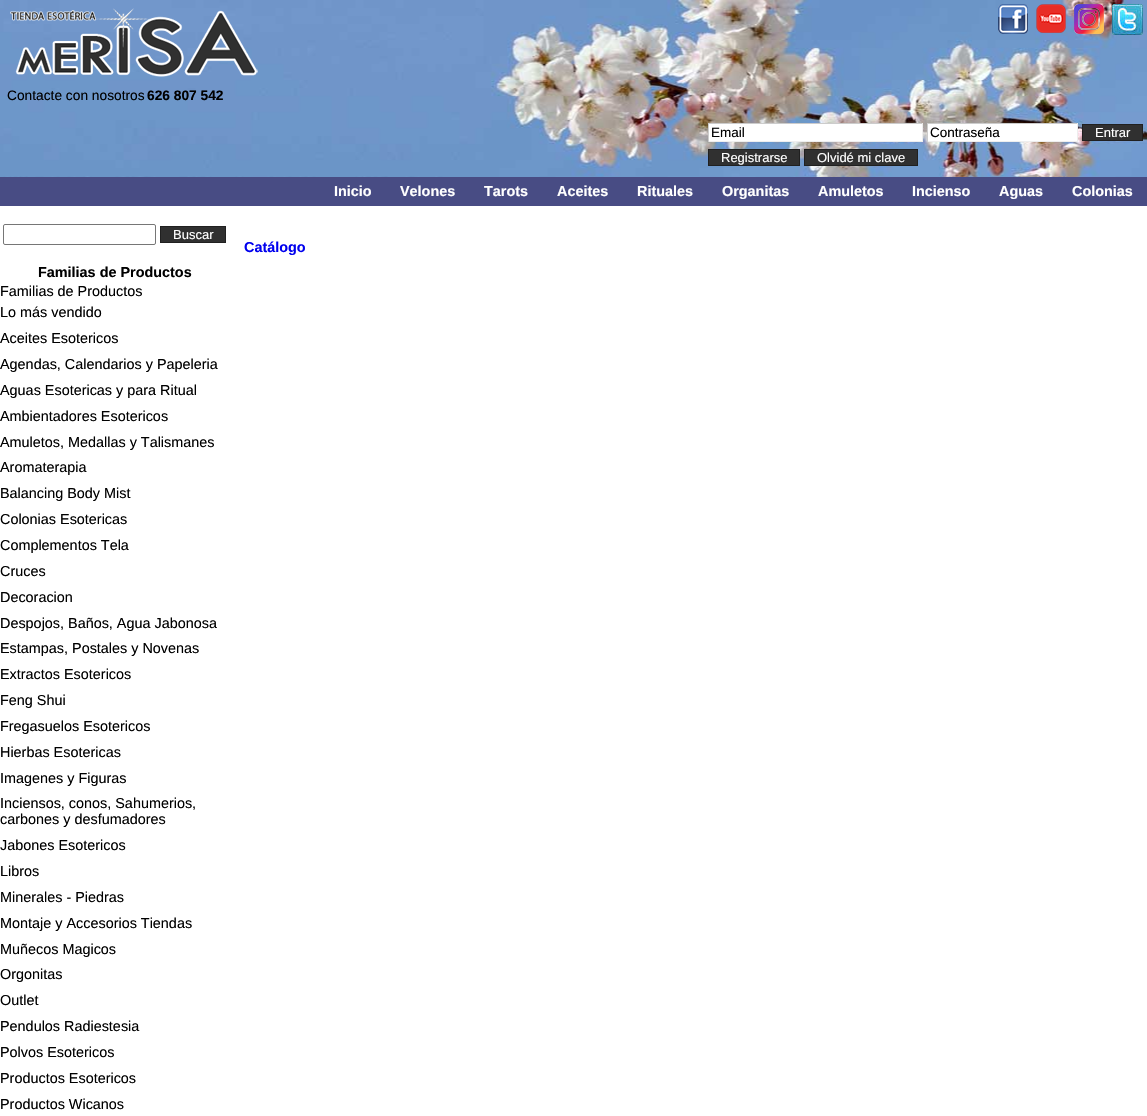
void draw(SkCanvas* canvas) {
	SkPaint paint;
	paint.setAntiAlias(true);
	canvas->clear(0xffffffff);
	canvas->drawImageRect(SkImages::DeferredFromEncodedData(SkData::MakeFromFileName("img1.png")), SkRect::MakeXYWH(0, 0, 1147, 177), SkSamplingOptions());
	canvas->drawImageRect(SkImages::DeferredFromEncodedData(SkData::MakeFromFileName("img2.png")), SkRect::MakeXYWH(10, 8, 248, 69), SkSamplingOptions());
	canvas->drawImageRect(SkImages::DeferredFromEncodedData(SkData::MakeFromFileName("img3.png")), SkRect::MakeXYWH(998, 4, 30, 30), SkSamplingOptions());
	canvas->drawImageRect(SkImages::DeferredFromEncodedData(SkData::MakeFromFileName("img4.png")), SkRect::MakeXYWH(1036, 4, 30, 29), SkSamplingOptions());
	canvas->drawImageRect(SkImages::DeferredFromEncodedData(SkData::MakeFromFileName("img5.png")), SkRect::MakeXYWH(1074, 4, 30, 30), SkSamplingOptions());
	canvas->drawImageRect(SkImages::DeferredFromEncodedData(SkData::MakeFromFileName("img6.png")), SkRect::MakeXYWH(1112, 4, 31, 31), SkSamplingOptions());
	SkFont f1(fontMgr->matchFamilyStyle("Liberation Sans", SkFontStyle::Normal()), 13.75);
	f1.setSubpixel(true);
	paint.setColor(0xff000000);
	canvas->drawString("Contacte con nosotros", 7, 100, f1, paint);
	SkFont f2(fontMgr->matchFamilyStyle("Liberation Sans", SkFontStyle::Bold()), 13.75);
	f2.setSubpixel(true);
	canvas->drawString("626 807 542", 147, 100, f2, paint);
	paint.setColor(0xffffffff);
	canvas->drawRect(SkRect::MakeXYWH(709, 124, 213, 17), paint);
	paint.setColor(0xffcccccc);
	canvas->drawRect(SkRect::MakeXYWH(708, 123, 215, 1), paint);
	paint.setColor(0xffeeeeee);
	canvas->drawRect(SkRect::MakeXYWH(922, 123, 1, 19), paint);
	canvas->drawRect(SkRect::MakeXYWH(708, 141, 215, 1), paint);
	paint.setColor(0xffcccccc);
	canvas->drawRect(SkRect::MakeXYWH(708, 123, 1, 19), paint);
	SkFont f3(fontMgr->matchFamilyStyle("Liberation Sans", SkFontStyle::Normal()), 13.5);
	f3.setSubpixel(true);
	paint.setColor(0xff000000);
	canvas->drawString("Email", 711, 137, f3, paint);
	paint.setColor(0xffffffff);
	canvas->drawRect(SkRect::MakeXYWH(928, 124, 149, 17), paint);
	paint.setColor(0xffcccccc);
	canvas->drawRect(SkRect::MakeXYWH(927, 123, 151, 1), paint);
	paint.setColor(0xffeeeeee);
	canvas->drawRect(SkRect::MakeXYWH(1077, 123, 1, 19), paint);
	canvas->drawRect(SkRect::MakeXYWH(927, 141, 151, 1), paint);
	paint.setColor(0xffcccccc);
	canvas->drawRect(SkRect::MakeXYWH(927, 123, 1, 19), paint);
	paint.setColor(0xff000000);
	canvas->drawString("Contraseña", 930, 137, f3, paint);
	paint.setColor(0xff303030);
	canvas->drawRect(SkRect::MakeXYWH(1082.5, 124.5, 60, 16), paint);
	paint.setStroke(true);
	paint.setStrokeWidth(1);
	paint.setColor(0xff202020);
	canvas->drawRect(SkRect::MakeXYWH(1082.5, 124.5, 60, 16), paint);
	SkFont f4(fontMgr->matchFamilyStyle("Liberation Sans", SkFontStyle::Normal()), 13);
	f4.setSubpixel(true);
	paint.setStroke(false);
	paint.setColor(0xffffffff);
	canvas->drawString("Entrar", 1095, 137, f4, paint);
	paint.setColor(0xff303030);
	canvas->drawRect(SkRect::MakeXYWH(708.5, 149.5, 91, 16), paint);
	paint.setStroke(true);
	paint.setColor(0xff202020);
	canvas->drawRect(SkRect::MakeXYWH(708.5, 149.5, 91, 16), paint);
	paint.setStroke(false);
	paint.setColor(0xffffffff);
	canvas->drawString("Registrarse", 721, 162, f4, paint);
	paint.setColor(0xff303030);
	canvas->drawRect(SkRect::MakeXYWH(804.5, 149.5, 113, 16), paint);
	paint.setStroke(true);
	paint.setColor(0xff202020);
	canvas->drawRect(SkRect::MakeXYWH(804.5, 149.5, 113, 16), paint);
	paint.setStroke(false);
	paint.setColor(0xffffffff);
	canvas->drawString("Olvidé mi clave", 817, 162, f4, paint);
	paint.setColor(0xff484c84);
	canvas->drawRect(SkRect::MakeXYWH(0, 177, 1147, 29), paint);
	SkFont f5(fontMgr->matchFamilyStyle("Liberation Sans", SkFontStyle::Bold()), 14.4);
	f5.setSubpixel(true);
	paint.setColor(0xffffffff);
	canvas->drawString("Inicio", 334, 196, f5, paint);
	canvas->drawString("Velones", 400, 196, f5, paint);
	canvas->drawString("Tarots", 484, 196, f5, paint);
	canvas->drawString("Aceites", 557, 196, f5, paint);
	canvas->drawString("Rituales", 637, 196, f5, paint);
	canvas->drawString("Organitas", 722, 196, f5, paint);
	canvas->drawString("Amuletos", 818, 196, f5, paint);
	canvas->drawString("Incienso", 912, 196, f5, paint);
	canvas->drawString("Aguas", 999, 196, f5, paint);
	canvas->drawString("Colonias", 1072, 196, f5, paint);
	paint.setStroke(true);
	paint.setColor(0xff767676);
	canvas->drawRoundRect(SkRect::MakeXYWH(3.5, 224.5, 152, 20), 1.5, 1.5, paint);
	paint.setStroke(false);
	paint.setColor(0xff303030);
	canvas->drawRect(SkRect::MakeXYWH(160.5, 226.5, 65, 16), paint);
	paint.setStroke(true);
	paint.setColor(0xff202020);
	canvas->drawRect(SkRect::MakeXYWH(160.5, 226.5, 65, 16), paint);
	paint.setStroke(false);
	paint.setColor(0xffffffff);
	canvas->drawString("Buscar", 173, 239, f4, paint);
	paint.setColor(0xff000000);
	canvas->drawString("Familias de Productos", 38, 277, f5, paint);
	SkFont f6(fontMgr->matchFamilyStyle("Liberation Sans", SkFontStyle::Normal()), 14.4);
	f6.setSubpixel(true);
	canvas->drawString("Familias de Productos", 0, 296, f6, paint);
	canvas->drawString("Lo más vendido", 0, 317, f6, paint);
	canvas->drawString("Aceites Esotericos", 0, 343, f6, paint);
	canvas->drawString("Agendas, Calendarios y Papeleria", 0, 369, f6, paint);
	canvas->drawString("Aguas Esotericas y para Ritual", 0, 395, f6, paint);
	canvas->drawString("Ambientadores Esotericos", 0, 421, f6, paint);
	canvas->drawString("Amuletos, Medallas y Talismanes", 0, 447, f6, paint);
	canvas->drawString("Aromaterapia", 0, 472, f6, paint);
	canvas->drawString("Balancing Body Mist", 0, 498, f6, paint);
	canvas->drawString("Colonias Esotericas", 0, 524, f6, paint);
	canvas->drawString("Complementos Tela", 0, 550, f6, paint);
	canvas->drawString("Cruces", 0, 576, f6, paint);
	canvas->drawString("Decoracion", 0, 602, f6, paint);
	canvas->drawString("Despojos, Baños, Agua Jabonosa", 0, 628, f6, paint);
	canvas->drawString("Estampas, Postales y Novenas", 0, 653, f6, paint);
	canvas->drawString("Extractos Esotericos", 0, 679, f6, paint);
	canvas->drawString("Feng Shui", 0, 705, f6, paint);
	canvas->drawString("Fregasuelos Esotericos", 0, 731, f6, paint);
	canvas->drawString("Hierbas Esotericas", 0, 757, f6, paint);
	canvas->drawString("Imagenes y Figuras", 0, 783, f6, paint);
	canvas->drawString("Inciensos, conos, Sahumerios,", 0, 808, f6, paint);
	canvas->drawString("carbones y desfumadores", 0, 824, f6, paint);
	canvas->drawString("Jabones Esotericos", 0, 850, f6, paint);
	canvas->drawString("Libros", 0, 876, f6, paint);
	canvas->drawString("Minerales - Piedras", 0, 902, f6, paint);
	canvas->drawString("Montaje y Accesorios Tiendas", 0, 928, f6, paint);
	canvas->drawString("Muñecos Magicos", 0, 954, f6, paint);
	canvas->drawString("Orgonitas", 0, 979, f6, paint);
	canvas->drawString("Outlet", 0, 1005, f6, paint);
	canvas->drawString("Pendulos Radiestesia", 0, 1031, f6, paint);
	canvas->drawString("Polvos Esotericos", 0, 1057, f6, paint);
	canvas->drawString("Productos Esotericos", 0, 1083, f6, paint);
	canvas->drawString("Productos Wicanos", 0, 1109, f6, paint);
	paint.setColor(0xff0000ee);
	canvas->drawString("Catálogo", 244, 252, f5, paint);
}
